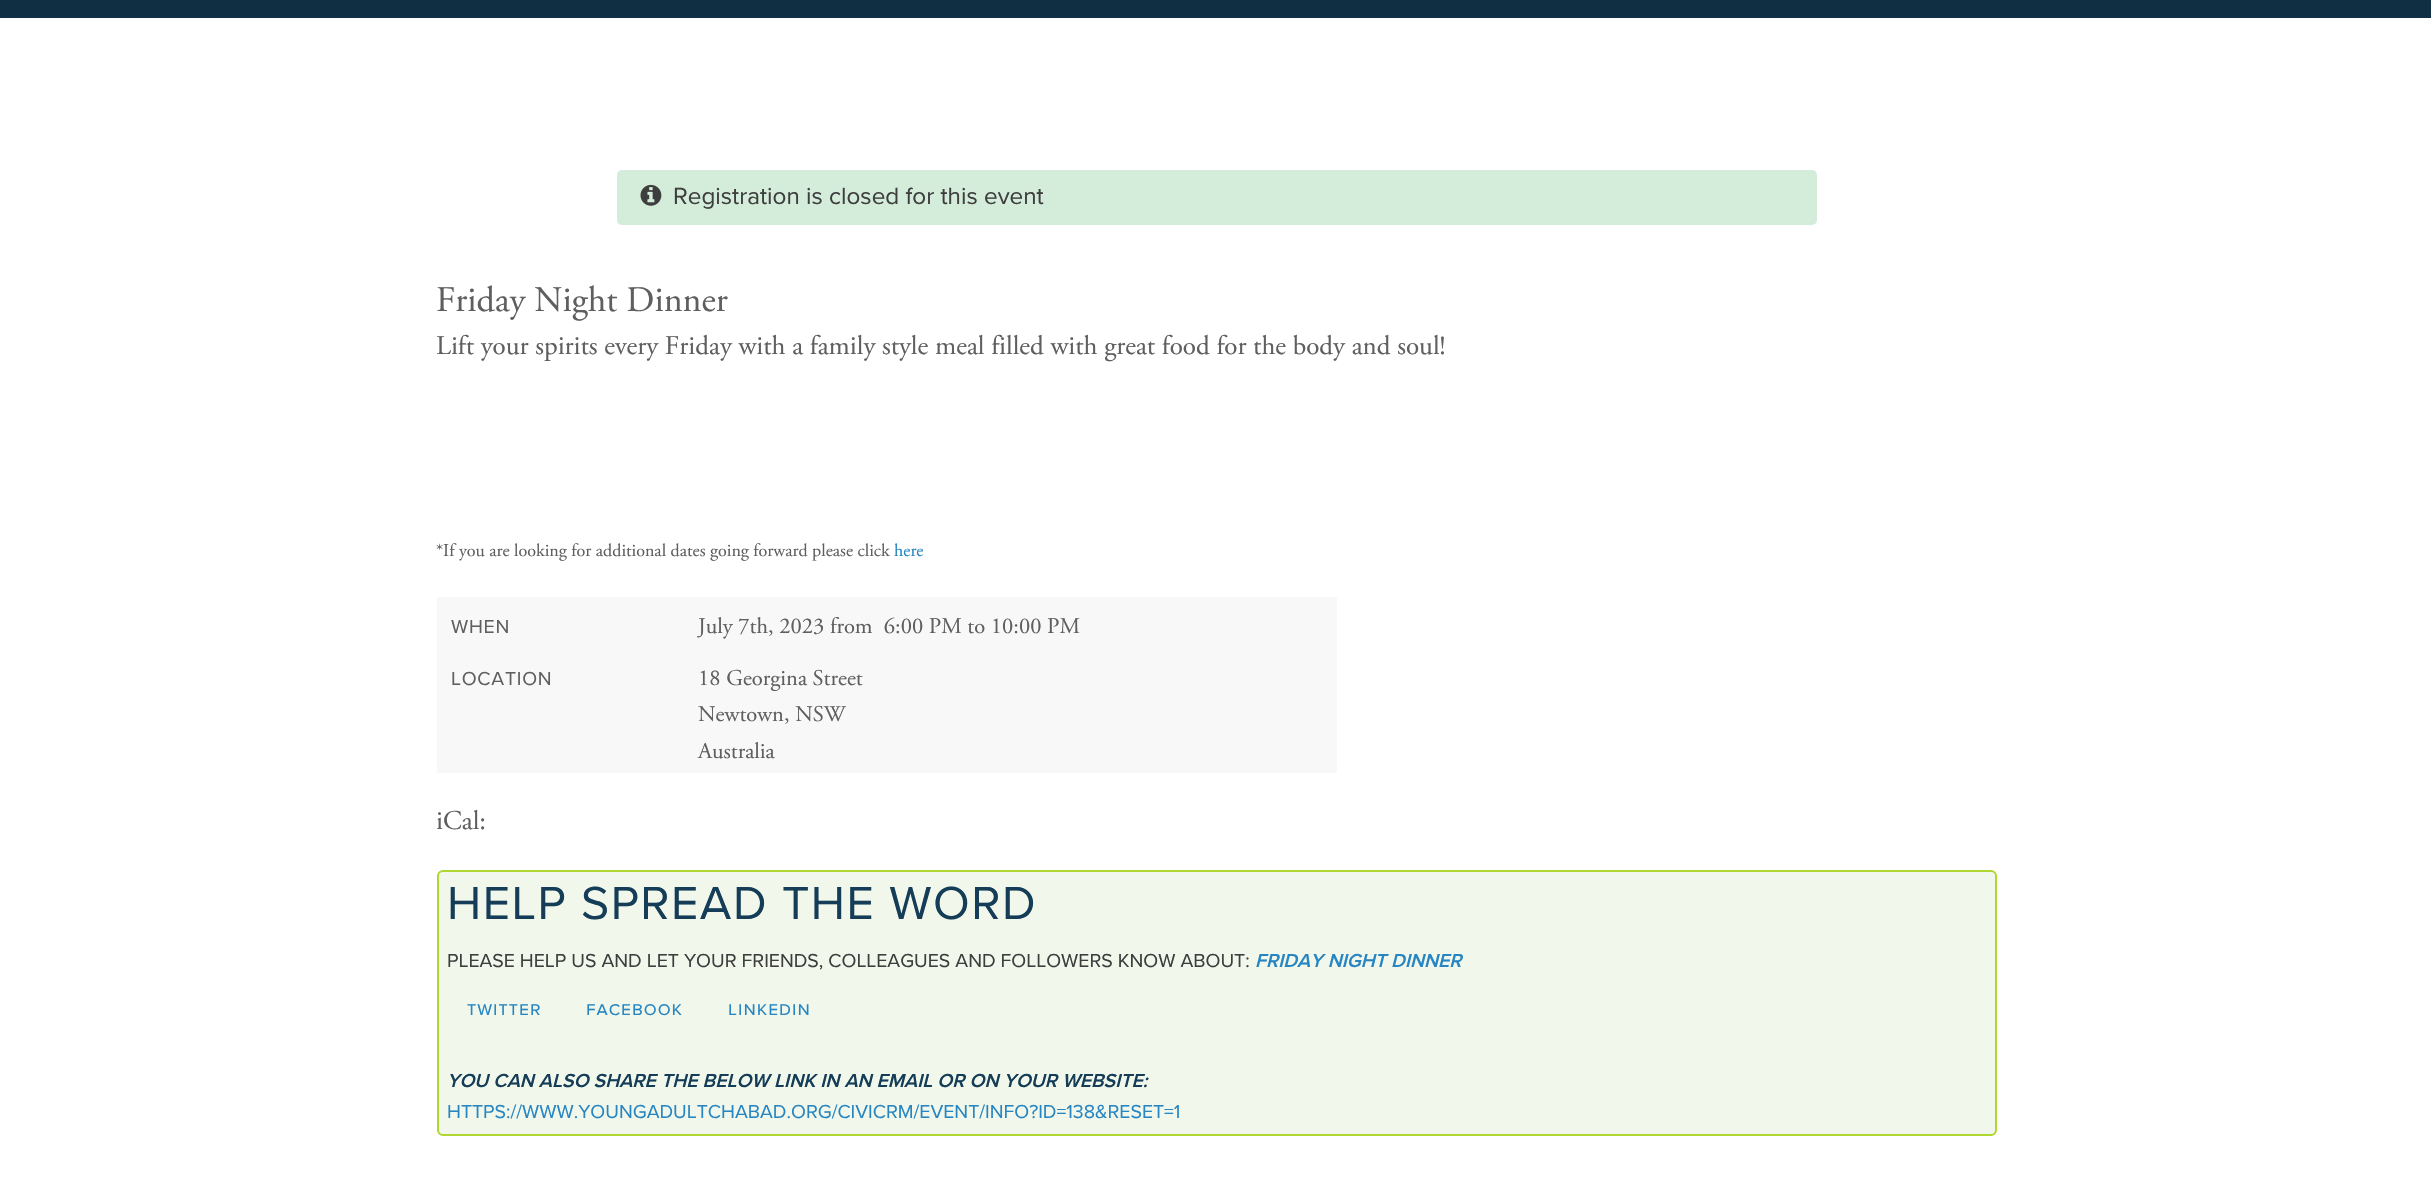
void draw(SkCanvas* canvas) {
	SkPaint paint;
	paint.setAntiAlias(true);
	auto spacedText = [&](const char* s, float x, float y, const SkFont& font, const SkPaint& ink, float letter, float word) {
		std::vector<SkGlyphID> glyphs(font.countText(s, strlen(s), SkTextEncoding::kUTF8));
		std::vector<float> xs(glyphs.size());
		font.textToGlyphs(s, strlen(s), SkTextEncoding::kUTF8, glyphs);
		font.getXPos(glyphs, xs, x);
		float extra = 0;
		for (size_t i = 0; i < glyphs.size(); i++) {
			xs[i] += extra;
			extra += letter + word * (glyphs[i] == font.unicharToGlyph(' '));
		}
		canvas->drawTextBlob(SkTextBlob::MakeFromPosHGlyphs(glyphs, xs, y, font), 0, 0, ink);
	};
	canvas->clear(0xffffffff);
	paint.setColor(0xff102f43);
	canvas->drawRect(SkRect::MakeXYWH(0, 0, 2431, 18), paint);
	paint.setColor(0xffd4edda);
	canvas->drawRoundRect(SkRect::MakeXYWH(617, 170, 1200, 55), 5, 5, paint);
	canvas->drawImageRect(SkImages::DeferredFromEncodedData(SkData::MakeFromFileName("img1.png")), SkRect::MakeXYWH(640, 184, 22, 22), SkSamplingOptions());
	SkFont f1(fontMgr->matchFamilyStyle("Proxima Nova", SkFontStyle::Normal()), 24.25);
	f1.setSubpixel(true);
	paint.setColor(0xff3e3e3e);
	canvas->drawString("Registration is closed for this event", 673, 204, f1, paint);
	SkFont f2(fontMgr->matchFamilyStyle("Adobe Garamond", SkFontStyle::Normal()), 36);
	f2.setSubpixel(true);
	paint.setColor(0xff5f5f5f);
	canvas->drawString("Friday Night Dinner", 436, 311, f2, paint);
	SkFont f3(fontMgr->matchFamilyStyle("Adobe Garamond", SkFontStyle::Normal()), 27);
	f3.setSubpixel(true);
	canvas->drawString("Lift your spirits every Friday with a family style meal filled with great food for the body and soul!", 436, 354, f3, paint);
	SkFont f4(fontMgr->matchFamilyStyle("Adobe Garamond", SkFontStyle::Normal()), 18);
	f4.setSubpixel(true);
	canvas->drawString("*If you are looking for additional dates going forward please click", 436, 556, f4, paint);
	paint.setColor(0xff2786c2);
	canvas->drawString("here", 894, 556, f4, paint);
	paint.setColor(0xfff8f8f8);
	canvas->drawRect(SkRect::MakeXYWH(437, 597, 900, 176), paint);
	SkFont f5(fontMgr->matchFamilyStyle("Proxima Nova", SkFontStyle::Normal()), 19.5);
	f5.setSubpixel(true);
	paint.setColor(0xff5f5f5f);
	spacedText("WHEN", 451, 633, f5, paint, 0.75, 0);
	SkFont f6(fontMgr->matchFamilyStyle("Adobe Garamond", SkFontStyle::Normal()), 22.5);
	f6.setSubpixel(true);
	canvas->drawString("July 7th, 2023 from  6:00 PM to 10:00 PM", 698, 633, f6, paint);
	spacedText("LOCATION", 451, 685, f5, paint, 0.75, 0);
	canvas->drawString("18 Georgina Street", 698, 685, f6, paint);
	canvas->drawString("Newtown, NSW", 698, 721, f6, paint);
	canvas->drawString("Australia", 698, 758, f6, paint);
	canvas->drawString("iCal:", 436, 829, f3, paint);
	paint.setColor(0xfff1f8eb);
	canvas->drawRoundRect(SkRect::MakeXYWH(438, 871, 1558, 264), 5, 5, paint);
	paint.setStroke(true);
	paint.setStrokeWidth(2);
	paint.setColor(0xffb0d730);
	canvas->drawRoundRect(SkRect::MakeXYWH(438, 871, 1558, 264), 5, 5, paint);
	SkFont f7(fontMgr->matchFamilyStyle("Proxima Nova", SkFontStyle::Normal()), 48);
	f7.setSubpixel(true);
	paint.setStroke(false);
	paint.setColor(0xff153d58);
	spacedText("HELP SPREAD THE WORD", 447, 919, f7, paint, 1.5, 0);
	paint.setColor(0xff3e3e3e);
	canvas->drawString("PLEASE HELP US AND LET YOUR FRIENDS, COLLEAGUES AND FOLLOWERS KNOW ABOUT:", 447, 967, f5, paint);
	SkFont f8(fontMgr->matchFamilyStyle("Proxima Nova", SkFontStyle(600, SkFontStyle::kNormal_Width, SkFontStyle::kItalic_Slant)), 19.5);
	f8.setSubpixel(true);
	paint.setColor(0xff2786c2);
	canvas->drawString("FRIDAY NIGHT DINNER", 1255, 967, f8, paint);
	SkFont f9(fontMgr->matchFamilyStyle("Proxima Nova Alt", SkFontStyle::Normal()), 19.5);
	f9.setSubpixel(true);
	spacedText("TWITTER", 467, 1015, f9, paint, 1, 0);
	spacedText("FACEBOOK", 586, 1015, f9, paint, 1, 0);
	spacedText("LINKEDIN", 728, 1015, f9, paint, 1, 0);
	paint.setColor(0xff153d58);
	canvas->drawString("YOU CAN ALSO SHARE THE BELOW LINK IN AN EMAIL OR ON YOUR WEBSITE:", 447, 1087, f8, paint);
	paint.setColor(0xff2786c2);
	canvas->drawString("HTTPS://WWW.YOUNGADULTCHABAD.ORG/CIVICRM/EVENT/INFO?ID=138&RESET=1", 447, 1118, f5, paint);
}
